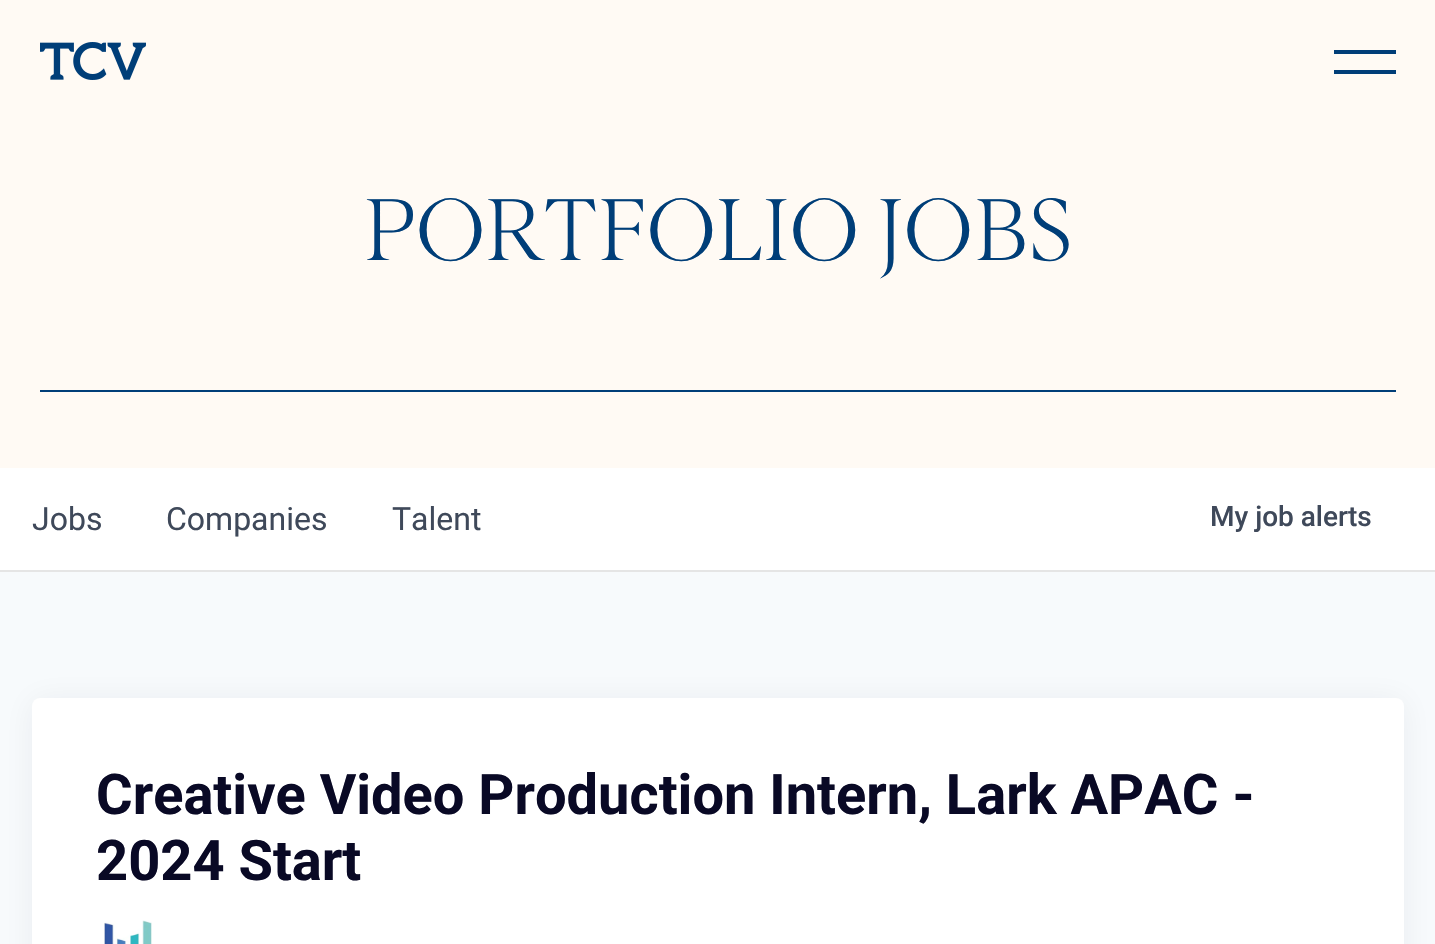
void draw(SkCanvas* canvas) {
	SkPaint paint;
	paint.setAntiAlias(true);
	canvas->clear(0xfff7fafc);
	paint.setColor(0xfffffaf4);
	canvas->drawRect(SkRect::MakeXYWH(0, 0, 1435, 468), paint);
	canvas->drawImageRect(SkImages::DeferredFromEncodedData(SkData::MakeFromFileName("img1.png")), SkRect::MakeXYWH(40, 42, 106, 38), SkSamplingOptions());
	paint.setColor(0xff003e78);
	canvas->drawRect(SkRect::MakeXYWH(1334, 50, 62, 4), paint);
	canvas->drawRect(SkRect::MakeXYWH(1334, 70, 62, 4), paint);
	SkFont f1(fontMgr->matchFamilyStyle("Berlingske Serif", SkFontStyle(300, SkFontStyle::kNormal_Width, SkFontStyle::kUpright_Slant)), 88);
	f1.setSubpixel(true);
	canvas->drawString("PORTFOLIO JOBS", 364, 260, f1, paint);
	canvas->drawRect(SkRect::MakeXYWH(40, 390, 1356, 2), paint);
	paint.setColor(0xffe5e5e5);
	canvas->drawRect(SkRect::MakeXYWH(0, 570, 1435, 2), paint);
	paint.setColor(0xffffffff);
	canvas->drawRect(SkRect::MakeXYWH(0, 468, 1435, 102), paint);
	SkFont f2(fontMgr->matchFamilyStyle("Roboto", SkFontStyle::Normal()), 32);
	f2.setSubpixel(true);
	paint.setColor(0xff3f495a);
	canvas->drawString("Jobs", 32, 530, f2, paint);
	canvas->drawString("Companies", 166, 530, f2, paint);
	canvas->drawString("Talent", 392, 530, f2, paint);
	SkFont f3(fontMgr->matchFamilyStyle("Roboto", SkFontStyle(500, SkFontStyle::kNormal_Width, SkFontStyle::kUpright_Slant)), 28);
	f3.setSubpixel(true);
	canvas->drawString("My job alerts", 1210, 526, f3, paint);
	paint.setColor(0x0f1b2432);
	paint.setMaskFilter(SkMaskFilter::MakeBlur(kNormal_SkBlurStyle, 16));
	canvas->drawRoundRect(SkRect::MakeXYWH(32, 700, 1372, 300), 8, 8, paint);
	paint.setMaskFilter(nullptr);
	paint.setColor(0xffffffff);
	canvas->drawRoundRect(SkRect::MakeXYWH(32, 698, 1372, 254), 8, 8, paint);
	SkFont f4(fontMgr->matchFamilyStyle("Roboto", SkFontStyle::Bold()), 56);
	f4.setSubpixel(true);
	paint.setColor(0xff090925);
	canvas->drawString("Creative Video Production Intern, Lark APAC -", 96, 814, f4, paint);
	canvas->drawString("2024 Start", 96, 880, f4, paint);
	canvas->drawImageRect(SkImages::DeferredFromEncodedData(SkData::MakeFromFileName("img2.png")), SkRect::MakeXYWH(104, 920, 48, 24), SkSamplingOptions());
}
